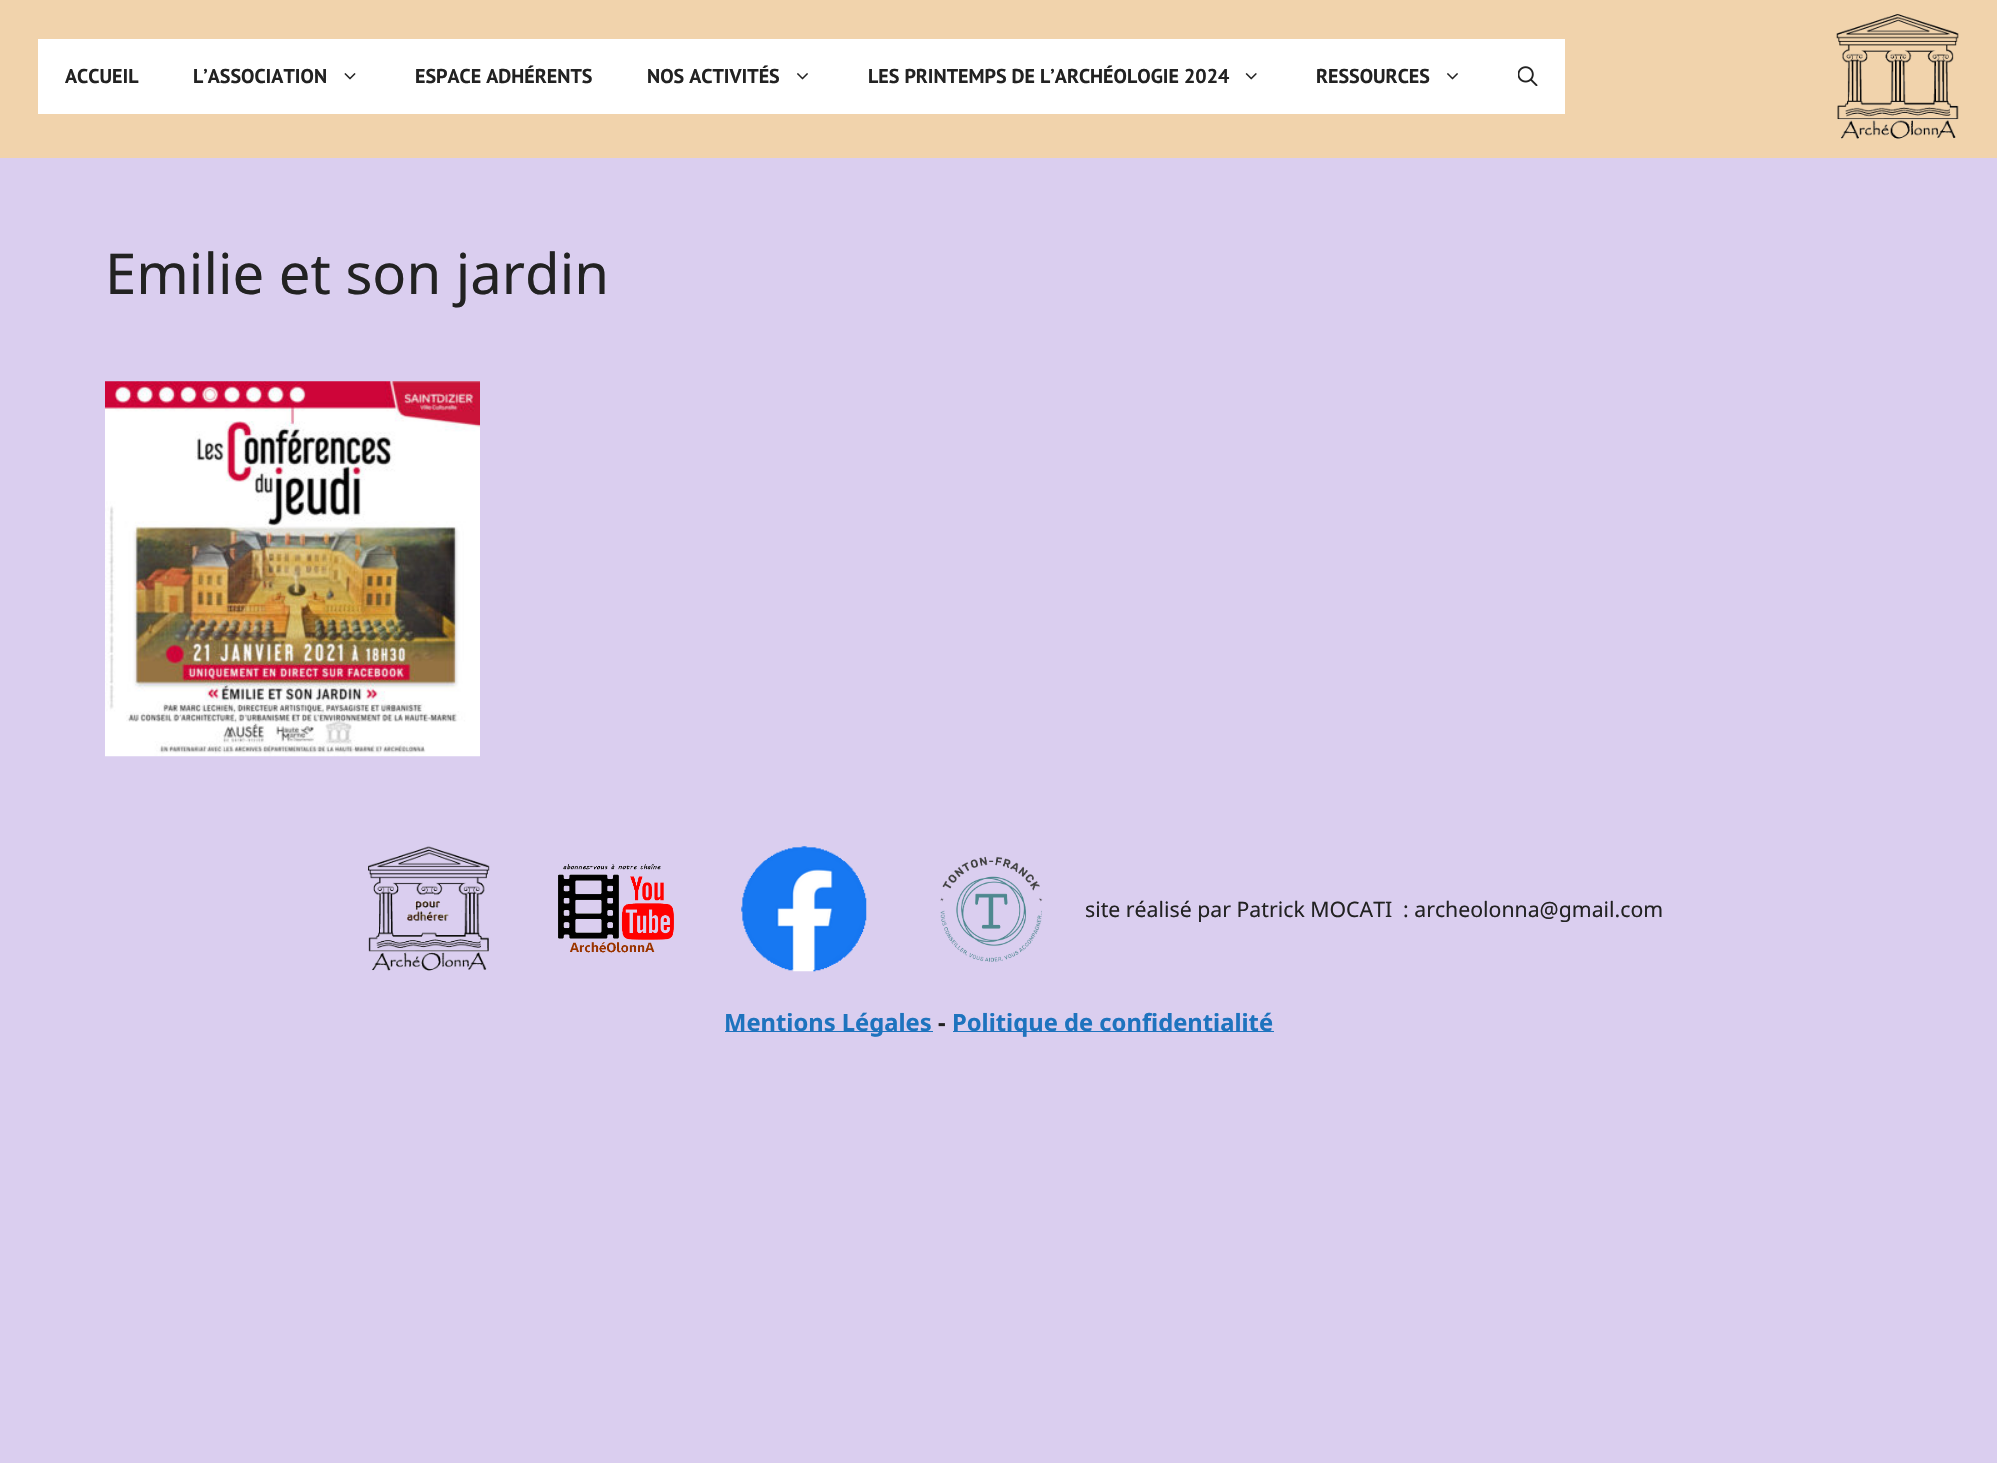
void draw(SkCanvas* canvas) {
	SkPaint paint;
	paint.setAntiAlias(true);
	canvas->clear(0xffdaceef);
	paint.setColor(0xfff1d3ac);
	canvas->drawRect(SkRect::MakeXYWH(0, 0, 1997, 158), paint);
	paint.setColor(0xffffffff);
	canvas->drawRect(SkRect::MakeXYWH(38, 39, 1527, 75), paint);
	SkFont f1(fontMgr->matchFamilyStyle("PT Sans", SkFontStyle::Bold()), 20);
	f1.setSubpixel(true);
	paint.setColor(0xff222222);
	canvas->drawString("ACCUEIL", 65, 83, f1, paint);
	canvas->drawString("L’ASSOCIATION", 193, 83, f1, paint);
	canvas->drawImageRect(SkImages::DeferredFromEncodedData(SkData::MakeFromFileName("img1.png")), SkRect::MakeXYWH(344, 73, 12, 7), SkSamplingOptions());
	canvas->drawString("ESPACE ADHÉRENTS", 415, 83, f1, paint);
	canvas->drawString("NOS ACTIVITÉS", 647, 83, f1, paint);
	canvas->drawImageRect(SkImages::DeferredFromEncodedData(SkData::MakeFromFileName("img2.png")), SkRect::MakeXYWH(797, 73, 11, 7), SkSamplingOptions());
	canvas->drawString("LES PRINTEMPS DE L’ARCHÉOLOGIE 2024", 868, 83, f1, paint);
	canvas->drawImageRect(SkImages::DeferredFromEncodedData(SkData::MakeFromFileName("img3.png")), SkRect::MakeXYWH(1245, 73, 12, 7), SkSamplingOptions());
	canvas->drawString("RESSOURCES", 1316, 83, f1, paint);
	canvas->drawImageRect(SkImages::DeferredFromEncodedData(SkData::MakeFromFileName("img2.png")), SkRect::MakeXYWH(1447, 73, 11, 7), SkSamplingOptions());
	canvas->drawImageRect(SkImages::DeferredFromEncodedData(SkData::MakeFromFileName("img4.png")), SkRect::MakeXYWH(1518, 66, 20, 20), SkSamplingOptions());
	canvas->drawImageRect(SkImages::DeferredFromEncodedData(SkData::MakeFromFileName("img5.png")), SkRect::MakeXYWH(1836, 14, 123, 125), SkSamplingOptions());
	SkFont f2(fontMgr->matchFamilyStyle("Noto Sans", SkFontStyle::Normal()), 56.25);
	f2.setSubpixel(true);
	canvas->drawString("Emilie et son jardin", 105, 294, f2, paint);
	canvas->drawImageRect(SkImages::DeferredFromEncodedData(SkData::MakeFromFileName("img6.png")), SkRect::MakeXYWH(105, 381, 375, 376), SkSamplingOptions());
	canvas->drawImageRect(SkImages::DeferredFromEncodedData(SkData::MakeFromFileName("img7.png")), SkRect::MakeXYWH(368, 846, 122, 125), SkSamplingOptions());
	canvas->drawImageRect(SkImages::DeferredFromEncodedData(SkData::MakeFromFileName("img8.png")), SkRect::MakeXYWH(558, 864, 116, 89), SkSamplingOptions());
	canvas->drawImageRect(SkImages::DeferredFromEncodedData(SkData::MakeFromFileName("img9.png")), SkRect::MakeXYWH(741, 846, 126, 126), SkSamplingOptions());
	canvas->drawImageRect(SkImages::DeferredFromEncodedData(SkData::MakeFromFileName("img10.png")), SkRect::MakeXYWH(940, 856, 103, 106), SkSamplingOptions());
	SkFont f3(fontMgr->matchFamilyStyle("Noto Sans", SkFontStyle::Normal()), 21.25);
	f3.setSubpixel(true);
	canvas->drawString("site réalisé par Patrick MOCATI", 1085, 917, f3, paint);
	canvas->drawString(": archeolonna@gmail.com", 1403, 917, f3, paint);
	paint.setColor(0xff1e73be);
	canvas->drawRect(SkRect::MakeXYWH(725, 1031, 208, 1), paint);
	SkFont f4(fontMgr->matchFamilyStyle("Noto Sans", SkFontStyle::Bold()), 23.75);
	f4.setSubpixel(true);
	canvas->drawString("Mentions Légales", 724, 1031, f4, paint);
	paint.setColor(0xff222222);
	canvas->drawString("-", 938, 1031, f4, paint);
	paint.setColor(0xff1e73be);
	canvas->drawRect(SkRect::MakeXYWH(953, 1031, 321, 1), paint);
	canvas->drawString("Politique de confidentialité", 952, 1031, f4, paint);
}
